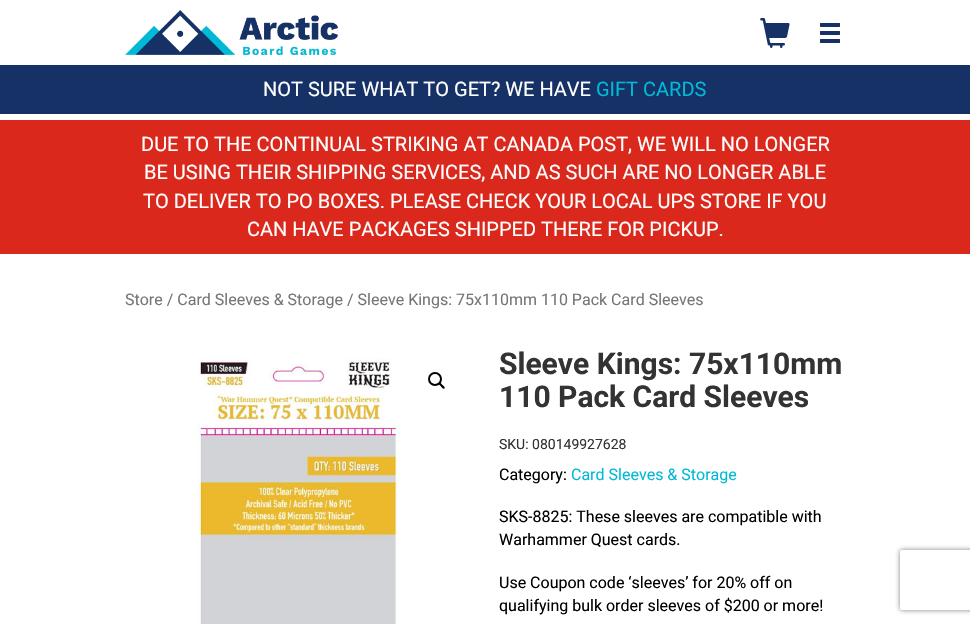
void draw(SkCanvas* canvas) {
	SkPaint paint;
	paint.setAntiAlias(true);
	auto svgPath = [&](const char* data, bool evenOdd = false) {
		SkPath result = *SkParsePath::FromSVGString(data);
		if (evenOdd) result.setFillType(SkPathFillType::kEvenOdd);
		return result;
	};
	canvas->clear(0xffffffff);
	canvas->drawImageRect(SkImages::DeferredFromEncodedData(SkData::MakeFromFileName("img1.png")), SkRect::MakeXYWH(125, 10, 213, 45), SkSamplingOptions());
	canvas->drawImageRect(SkImages::DeferredFromEncodedData(SkData::MakeFromFileName("img2.png")), SkRect::MakeXYWH(760, 18, 30, 30), SkSamplingOptions());
	canvas->drawImageRect(SkImages::DeferredFromEncodedData(SkData::MakeFromFileName("img3.png")), SkRect::MakeXYWH(820, 23, 20, 20), SkSamplingOptions());
	paint.setColor(0xff163165);
	canvas->drawRect(SkRect::MakeXYWH(0, 65, 970, 49), paint);
	SkFont f1(fontMgr->matchFamilyStyle("Roboto", SkFontStyle::Normal()), 20);
	f1.setSubpixel(true);
	paint.setColor(0xffffffff);
	canvas->drawString("NOT SURE WHAT TO GET? WE HAVE", 263, 96, f1, paint);
	paint.setColor(0xff00b9d6);
	canvas->drawString("GIFT CARDS", 596, 96, f1, paint);
	paint.setColor(0xffda291c);
	canvas->drawRect(SkRect::MakeXYWH(0, 120, 970, 134), paint);
	paint.setColor(0xffffffff);
	canvas->drawString("DUE TO THE CONTINUAL STRIKING AT CANADA POST, WE WILL NO LONGER", 141, 151, f1, paint);
	canvas->drawString("BE USING THEIR SHIPPING SERVICES, AND AS SUCH ARE NO LONGER ABLE", 144, 179, f1, paint);
	canvas->drawString("TO DELIVER TO PO BOXES. PLEASE CHECK YOUR LOCAL UPS STORE IF YOU", 143, 208, f1, paint);
	canvas->drawString("CAN HAVE PACKAGES SHIPPED THERE FOR PICKUP.", 247, 236, f1, paint);
	SkFont f2(fontMgr->matchFamilyStyle("Roboto", SkFontStyle::Normal()), 16);
	f2.setSubpixel(true);
	paint.setColor(0xff767676);
	canvas->drawString("Store / Card Sleeves & Storage / Sleeve Kings: 75x110mm 110 Pack Card Sleeves", 125, 305, f2, paint);
	canvas->drawImageRect(SkImages::DeferredFromEncodedData(SkData::MakeFromFileName("img4.png")), SkRect::MakeXYWH(197, 358, 200, 266), SkSamplingOptions());
	paint.setStroke(true);
	paint.setStrokeWidth(2);
	paint.setColor(0xff000000);
	canvas->drawCircle(435, 379, 6, paint);
	paint.setStroke(false);
	canvas->drawPath(svgPath("M439 383C440 381.5 441.5 384.5 442.5 385C443 385.5 445.5 387.5 444.5 388.5C443 389.5 441.5 387 441 386.5C440.5 385.5 437.5 384 439 383Z"), paint);
	SkFont f3(fontMgr->matchFamilyStyle("Roboto", SkFontStyle::Bold()), 30);
	f3.setSubpixel(true);
	paint.setColor(0xff333333);
	canvas->drawString("Sleeve Kings: 75x110mm", 499, 374, f3, paint);
	canvas->drawString("110 Pack Card Sleeves", 499, 407, f3, paint);
	SkFont f4(fontMgr->matchFamilyStyle("Roboto", SkFontStyle::Normal()), 14);
	f4.setSubpixel(true);
	canvas->drawString("SKU: 080149927628", 499, 449, f4, paint);
	paint.setColor(0xff000000);
	canvas->drawString("Category:", 499, 480, f2, paint);
	paint.setColor(0xff00b9d6);
	canvas->drawString("Card Sleeves & Storage", 571, 480, f2, paint);
	paint.setColor(0xff000000);
	canvas->drawString("SKS-8825: These sleeves are compatible with", 499, 522, f2, paint);
	canvas->drawString("Warhammer Quest cards.", 499, 545, f2, paint);
	canvas->drawString("Use Coupon code ‘sleeves’ for 20% off on", 499, 588, f2, paint);
	canvas->drawString("qualifying bulk order sleeves of $200 or more!", 499, 611, f2, paint);
	canvas->save();
	canvas->clipPath(svgPath("M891 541H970V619H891ZM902 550H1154C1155 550 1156 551 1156 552V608C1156 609 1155 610 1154 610H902C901 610 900 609 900 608V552C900 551 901 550 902 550Z", true), true);
	paint.setColor(0xff808080);
	paint.setMaskFilter(SkMaskFilter::MakeBlur(kNormal_SkBlurStyle, 2.5));
	canvas->drawRoundRect(SkRect::MakeXYWH(900, 550, 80, 60), 2, 2, paint);
	paint.setMaskFilter(nullptr);
	canvas->restore();
}
